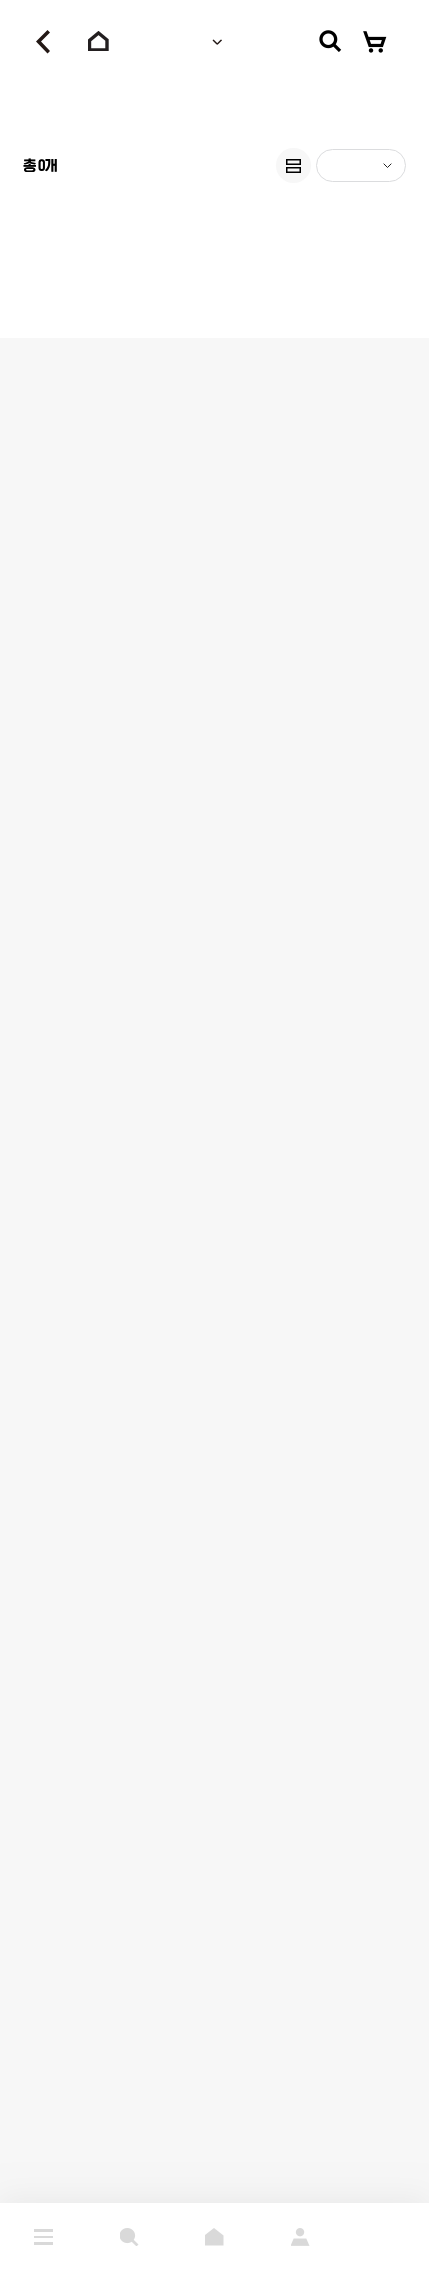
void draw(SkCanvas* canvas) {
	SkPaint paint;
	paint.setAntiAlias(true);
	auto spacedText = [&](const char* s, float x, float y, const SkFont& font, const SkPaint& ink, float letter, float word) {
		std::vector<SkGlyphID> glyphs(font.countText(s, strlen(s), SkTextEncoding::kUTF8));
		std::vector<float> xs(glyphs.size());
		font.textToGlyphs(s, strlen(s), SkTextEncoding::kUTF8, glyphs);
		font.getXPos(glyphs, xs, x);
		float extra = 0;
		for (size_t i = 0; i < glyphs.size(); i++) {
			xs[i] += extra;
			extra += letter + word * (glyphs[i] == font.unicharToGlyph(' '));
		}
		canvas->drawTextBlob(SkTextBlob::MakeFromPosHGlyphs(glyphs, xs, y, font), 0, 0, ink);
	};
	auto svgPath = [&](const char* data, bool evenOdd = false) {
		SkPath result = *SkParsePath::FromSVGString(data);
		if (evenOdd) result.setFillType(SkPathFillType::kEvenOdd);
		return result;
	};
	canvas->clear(0xfff7f7f7);
	paint.setColor(0xffffffff);
	canvas->drawRect(SkRect::MakeXYWH(0, 0, 429, 338), paint);
	paint.setColor(0xff231815);
	canvas->drawPath(svgPath("M47.5 53.5L36 41.5L47.5 30L50 32.5L41 41.5L50 51Z"), paint);
	canvas->save();
	canvas->clipRect(SkRect::MakeXYWH(88, 31, 21, 20));
	paint.setStroke(true);
	paint.setStrokeWidth(3.4);
	paint.setColor(0xff231f20);
	canvas->drawPath(svgPath("M107 40L98.5 33L89.5 40.5V50H107Z"), paint);
	canvas->restore();
	canvas->drawImageRect(SkImages::DeferredFromEncodedData(SkData::MakeFromFileName("img1.png")), SkRect::MakeXYWH(212, 39, 10, 6), SkSamplingOptions());
	canvas->drawImageRect(SkImages::DeferredFromEncodedData(SkData::MakeFromFileName("img2.png")), SkRect::MakeXYWH(319, 30, 23, 22), SkSamplingOptions());
	canvas->drawImageRect(SkImages::DeferredFromEncodedData(SkData::MakeFromFileName("img3.png")), SkRect::MakeXYWH(363, 31, 24, 22), SkSamplingOptions());
	SkFont f1(fontMgr->matchFamilyStyle("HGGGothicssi", SkFontStyle::Normal()), 15);
	f1.setSubpixel(true);
	paint.setStroke(false);
	paint.setColor(0xff000000);
	spacedText("총 0개", 23, 170, f1, paint, -1, 0);
	paint.setColor(0xfff7f7f7);
	canvas->drawCircle(293.5, 165.5, 17.5, paint);
	paint.setStroke(true);
	paint.setStrokeWidth(1.5);
	paint.setColor(0xff000000);
	canvas->drawRect(SkRect::MakeXYWH(286.75, 159.75, 13.5, 4.5), paint);
	canvas->drawRect(SkRect::MakeXYWH(286.75, 167.75, 13.5, 4.5), paint);
	paint.setStrokeWidth(1);
	paint.setColor(0xffdbdcde);
	canvas->drawRoundRect(SkRect::MakeXYWH(316.5, 149.5, 89, 32), 16, 16, paint);
	paint.setStrokeCap(SkPaint::kSquare_Cap);
	paint.setColor(0xff222222);
	canvas->drawPath(svgPath("M384 164L387.5 167.5L391 164"), paint);
	paint.setStroke(false);
	paint.setColor(0x0d000000);
	paint.setMaskFilter(SkMaskFilter::MakeBlur(kNormal_SkBlurStyle, 15));
	canvas->drawRect(SkRect::MakeXYWH(0, 2198, 429, 68), paint);
	paint.setMaskFilter(nullptr);
	paint.setColor(0xffffffff);
	canvas->drawRect(SkRect::MakeXYWH(0, 2203, 429, 68), paint);
	paint.setColor(0xffd9d9d9);
	canvas->drawRect(SkRect::MakeXYWH(34, 2229, 19, 3), paint);
	canvas->drawRect(SkRect::MakeXYWH(34, 2236, 19, 2), paint);
	canvas->drawRect(SkRect::MakeXYWH(34, 2242, 19, 3), paint);
	canvas->drawImageRect(SkImages::DeferredFromEncodedData(SkData::MakeFromFileName("img4.png")), SkRect::MakeXYWH(120, 2228, 19, 18), SkSamplingOptions());
	canvas->save();
	canvas->clipRect(SkRect::MakeXYWH(205, 2228, 19, 18));
	canvas->drawPath(svgPath("M204.5 2235.5V2245.5H223.5V2235.5L214 2228Z"), paint);
	canvas->restore();
	canvas->drawImageRect(SkImages::DeferredFromEncodedData(SkData::MakeFromFileName("img5.png")), SkRect::MakeXYWH(291, 2228, 19, 18), SkSamplingOptions());
}
